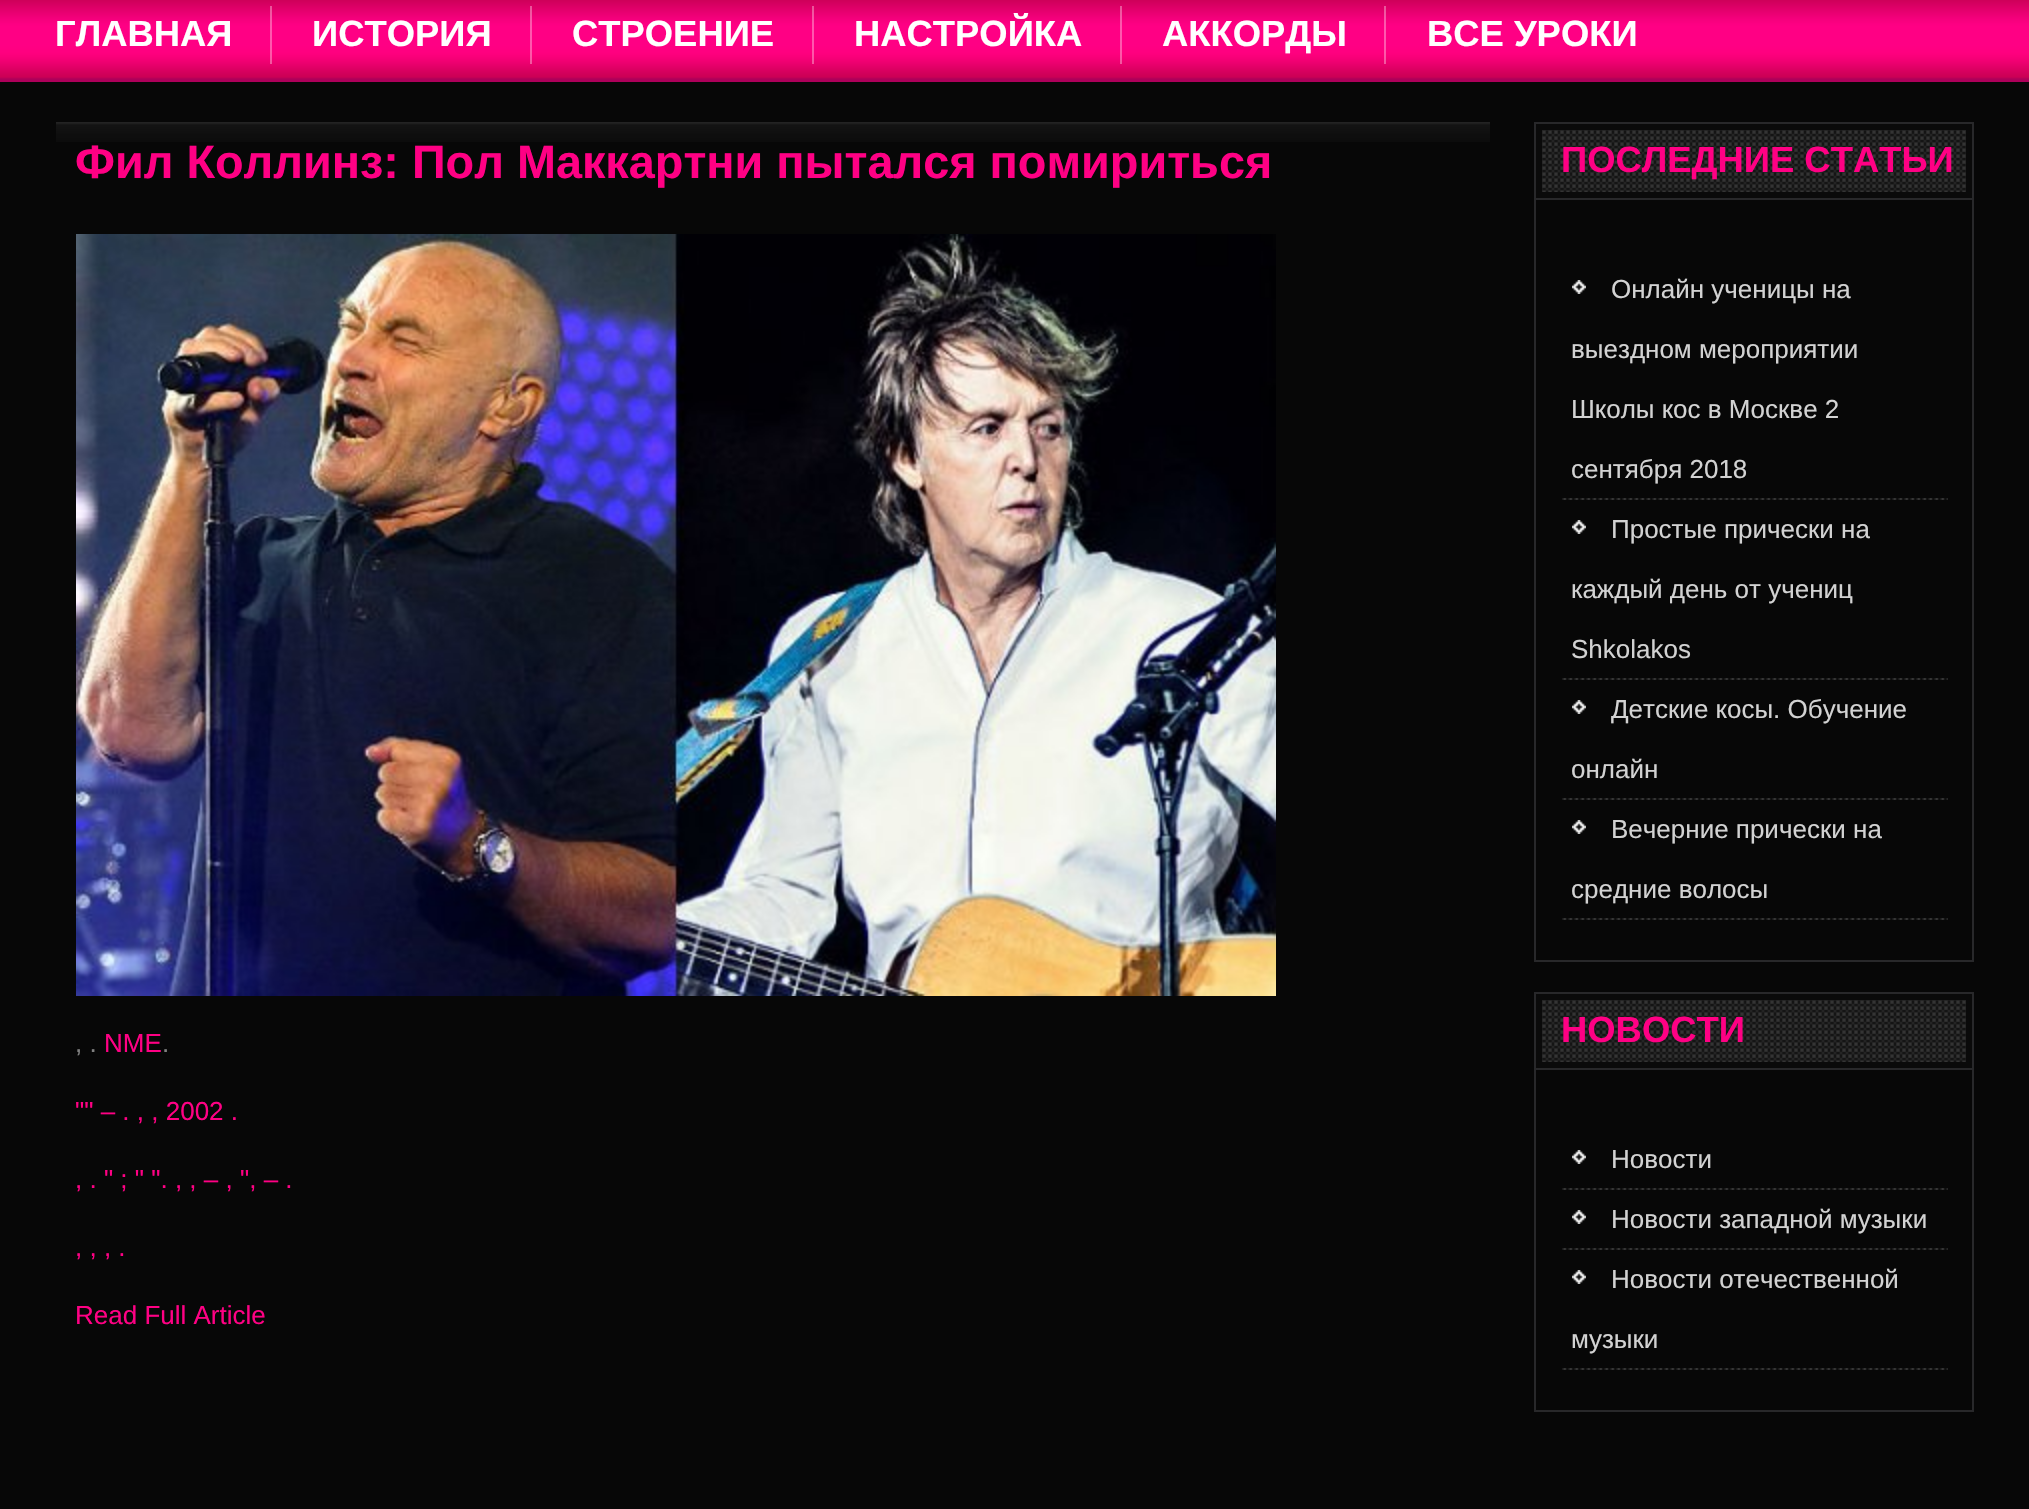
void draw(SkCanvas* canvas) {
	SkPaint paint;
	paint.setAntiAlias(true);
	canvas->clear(0xff070707);
	canvas->drawImageRect(SkImages::DeferredFromEncodedData(SkData::MakeFromFileName("img1.png")), SkRect::MakeXYWH(0, 0, 2029, 82), SkSamplingOptions());
	canvas->drawImageRect(SkImages::DeferredFromEncodedData(SkData::MakeFromFileName("img2.png")), SkRect::MakeXYWH(270, 6, 2, 58), SkSamplingOptions());
	SkFont f1(fontMgr->matchFamilyStyle("Liberation Sans", SkFontStyle::Bold()), 36.4);
	f1.setSubpixel(true);
	paint.setColor(0xffffffff);
	canvas->drawString("ГЛАВНАЯ", 55, 46, f1, paint);
	canvas->drawImageRect(SkImages::DeferredFromEncodedData(SkData::MakeFromFileName("img2.png")), SkRect::MakeXYWH(530, 6, 2, 58), SkSamplingOptions());
	canvas->drawString("ИСТОРИЯ", 312, 46, f1, paint);
	canvas->drawImageRect(SkImages::DeferredFromEncodedData(SkData::MakeFromFileName("img2.png")), SkRect::MakeXYWH(812, 6, 2, 58), SkSamplingOptions());
	canvas->drawString("СТРОЕНИЕ", 572, 46, f1, paint);
	canvas->drawImageRect(SkImages::DeferredFromEncodedData(SkData::MakeFromFileName("img2.png")), SkRect::MakeXYWH(1120, 6, 2, 58), SkSamplingOptions());
	canvas->drawString("НАСТРОЙКА", 854, 46, f1, paint);
	canvas->drawImageRect(SkImages::DeferredFromEncodedData(SkData::MakeFromFileName("img2.png")), SkRect::MakeXYWH(1384, 6, 2, 58), SkSamplingOptions());
	canvas->drawString("АККОРДЫ", 1162, 46, f1, paint);
	canvas->drawString("ВСЕ УРОКИ", 1427, 46, f1, paint);
	canvas->drawImageRect(SkImages::DeferredFromEncodedData(SkData::MakeFromFileName("img3.png")), SkRect::MakeXYWH(56, 122, 1434, 20), SkSamplingOptions());
	SkFont f2(fontMgr->matchFamilyStyle("Liberation Sans", SkFontStyle::Bold()), 46.8);
	f2.setSubpixel(true);
	paint.setColor(0xffff0084);
	canvas->drawString("Фил Коллинз: Пол Маккартни пытался помириться", 75, 178, f2, paint);
	canvas->drawImageRect(SkImages::DeferredFromEncodedData(SkData::MakeFromFileName("img4.png")), SkRect::MakeXYWH(76, 234, 1200, 762), SkSamplingOptions());
	SkFont f3(fontMgr->matchFamilyStyle("Liberation Sans", SkFontStyle::Normal()), 26);
	f3.setSubpixel(true);
	paint.setColor(0xff808080);
	canvas->drawString(", .", 75, 1052, f3, paint);
	paint.setColor(0xffff0084);
	canvas->drawString("NME", 104, 1052, f3, paint);
	paint.setColor(0xff808080);
	canvas->drawString(".", 162, 1052, f3, paint);
	paint.setColor(0xffff0084);
	canvas->drawString("\"\" – . , , 2002 .", 75, 1120, f3, paint);
	canvas->drawString(", . \" ; \" \". , , – , \", – .", 75, 1188, f3, paint);
	canvas->drawString(", , , .", 75, 1256, f3, paint);
	canvas->drawString("Read Full Article", 75, 1324, f3, paint);
	paint.setColor(0xff0a0a0a);
	canvas->drawRect(SkRect::MakeXYWH(1535, 123, 438, 76), paint);
	paint.setStroke(true);
	paint.setStrokeWidth(2);
	paint.setColor(0xff28282a);
	canvas->drawRect(SkRect::MakeXYWH(1535, 123, 438, 76), paint);
	canvas->drawImageRect(SkImages::DeferredFromEncodedData(SkData::MakeFromFileName("img5.png")), SkRect::MakeXYWH(1542, 130, 424, 62), SkSamplingOptions());
	paint.setStroke(false);
	paint.setColor(0xffff0084);
	canvas->drawString("ПОСЛЕДНИЕ СТАТЬИ", 1561, 172, f1, paint);
	paint.setColor(0xff28282a);
	canvas->drawRect(SkRect::MakeXYWH(1972, 200, 2, 762), paint);
	canvas->drawRect(SkRect::MakeXYWH(1534, 960, 440, 2), paint);
	canvas->drawRect(SkRect::MakeXYWH(1534, 200, 2, 762), paint);
	canvas->drawImageRect(SkImages::DeferredFromEncodedData(SkData::MakeFromFileName("img6.png")), SkRect::MakeXYWH(1562, 498, 386, 2), SkSamplingOptions());
	canvas->drawImageRect(SkImages::DeferredFromEncodedData(SkData::MakeFromFileName("img7.png")), SkRect::MakeXYWH(1572, 280, 14, 14), SkSamplingOptions());
	paint.setColor(0xffd2d2d2);
	canvas->drawString("Онлайн ученицы на", 1611, 298, f3, paint);
	canvas->drawString("выездном мероприятии", 1571, 358, f3, paint);
	canvas->drawString("Школы кос в Москве 2", 1571, 418, f3, paint);
	canvas->drawString("сентября 2018", 1571, 478, f3, paint);
	canvas->drawImageRect(SkImages::DeferredFromEncodedData(SkData::MakeFromFileName("img6.png")), SkRect::MakeXYWH(1562, 678, 386, 2), SkSamplingOptions());
	canvas->drawImageRect(SkImages::DeferredFromEncodedData(SkData::MakeFromFileName("img7.png")), SkRect::MakeXYWH(1572, 520, 14, 14), SkSamplingOptions());
	canvas->drawString("Простые прически на", 1611, 538, f3, paint);
	canvas->drawString("каждый день от учениц", 1571, 598, f3, paint);
	canvas->drawString("Shkolakos", 1571, 658, f3, paint);
	canvas->drawImageRect(SkImages::DeferredFromEncodedData(SkData::MakeFromFileName("img6.png")), SkRect::MakeXYWH(1562, 798, 386, 2), SkSamplingOptions());
	canvas->drawImageRect(SkImages::DeferredFromEncodedData(SkData::MakeFromFileName("img7.png")), SkRect::MakeXYWH(1572, 700, 14, 14), SkSamplingOptions());
	canvas->drawString("Детские косы. Обучение", 1611, 718, f3, paint);
	canvas->drawString("онлайн", 1571, 778, f3, paint);
	canvas->drawImageRect(SkImages::DeferredFromEncodedData(SkData::MakeFromFileName("img6.png")), SkRect::MakeXYWH(1562, 918, 386, 2), SkSamplingOptions());
	canvas->drawImageRect(SkImages::DeferredFromEncodedData(SkData::MakeFromFileName("img7.png")), SkRect::MakeXYWH(1572, 820, 14, 14), SkSamplingOptions());
	canvas->drawString("Вечерние прически на", 1611, 838, f3, paint);
	canvas->drawString("средние волосы", 1571, 898, f3, paint);
	paint.setColor(0xff0a0a0a);
	canvas->drawRect(SkRect::MakeXYWH(1535, 993, 438, 76), paint);
	paint.setStroke(true);
	paint.setColor(0xff28282a);
	canvas->drawRect(SkRect::MakeXYWH(1535, 993, 438, 76), paint);
	canvas->drawImageRect(SkImages::DeferredFromEncodedData(SkData::MakeFromFileName("img5.png")), SkRect::MakeXYWH(1542, 1000, 424, 62), SkSamplingOptions());
	paint.setStroke(false);
	paint.setColor(0xffff0084);
	canvas->drawString("НОВОСТИ", 1561, 1042, f1, paint);
	paint.setColor(0xff28282a);
	canvas->drawRect(SkRect::MakeXYWH(1972, 1070, 2, 342), paint);
	canvas->drawRect(SkRect::MakeXYWH(1534, 1410, 440, 2), paint);
	canvas->drawRect(SkRect::MakeXYWH(1534, 1070, 2, 342), paint);
	canvas->drawImageRect(SkImages::DeferredFromEncodedData(SkData::MakeFromFileName("img6.png")), SkRect::MakeXYWH(1562, 1188, 386, 2), SkSamplingOptions());
	canvas->drawImageRect(SkImages::DeferredFromEncodedData(SkData::MakeFromFileName("img7.png")), SkRect::MakeXYWH(1572, 1150, 14, 14), SkSamplingOptions());
	paint.setColor(0xffd2d2d2);
	canvas->drawString("Новости", 1611, 1168, f3, paint);
	canvas->drawImageRect(SkImages::DeferredFromEncodedData(SkData::MakeFromFileName("img6.png")), SkRect::MakeXYWH(1562, 1248, 386, 2), SkSamplingOptions());
	canvas->drawImageRect(SkImages::DeferredFromEncodedData(SkData::MakeFromFileName("img7.png")), SkRect::MakeXYWH(1572, 1210, 14, 14), SkSamplingOptions());
	canvas->drawString("Новости западной музыки", 1611, 1228, f3, paint);
	canvas->drawImageRect(SkImages::DeferredFromEncodedData(SkData::MakeFromFileName("img6.png")), SkRect::MakeXYWH(1562, 1368, 386, 2), SkSamplingOptions());
	canvas->drawImageRect(SkImages::DeferredFromEncodedData(SkData::MakeFromFileName("img7.png")), SkRect::MakeXYWH(1572, 1270, 14, 14), SkSamplingOptions());
	canvas->drawString("Новости отечественной", 1611, 1288, f3, paint);
	canvas->drawString("музыки", 1571, 1348, f3, paint);
}
